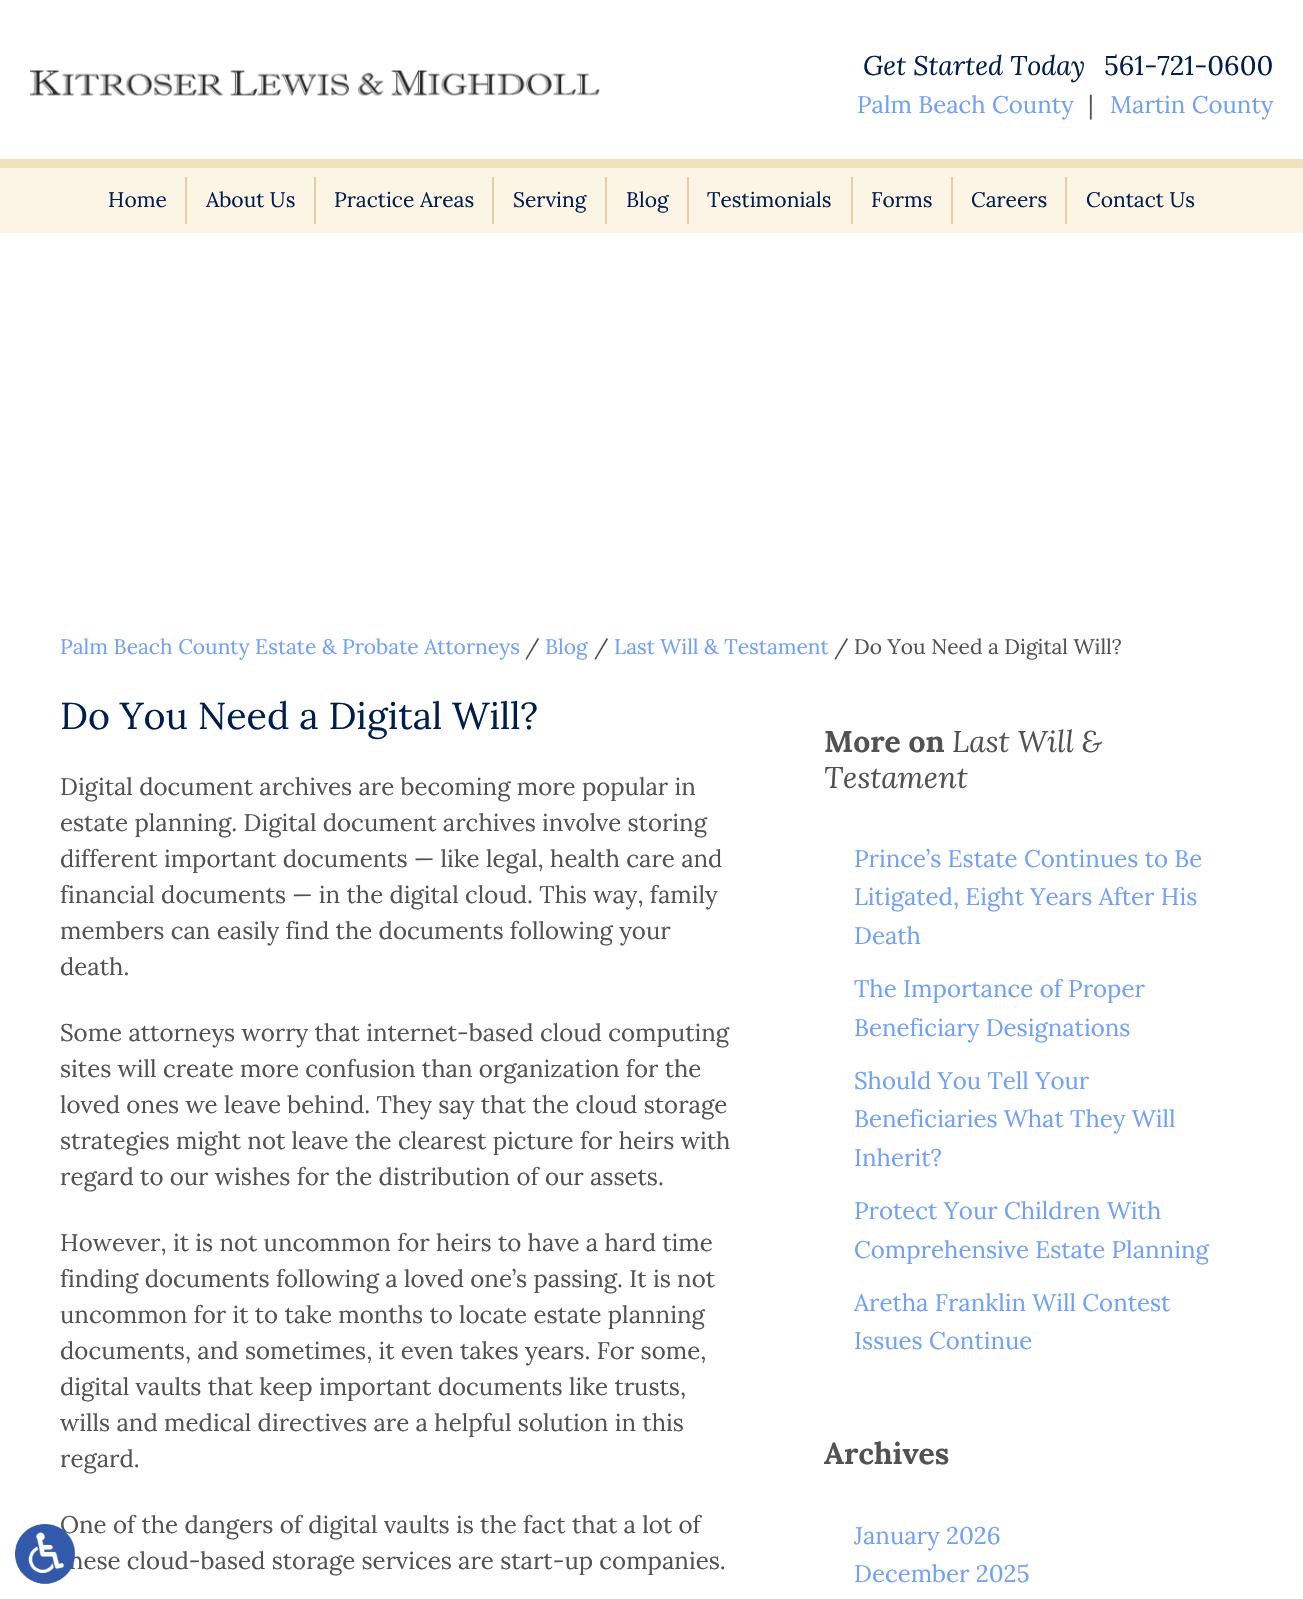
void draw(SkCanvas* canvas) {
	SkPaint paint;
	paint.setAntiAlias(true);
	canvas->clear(0xffffffff);
	SkFont f1(fontMgr->matchFamilyStyle("Lora", SkFontStyle::Normal()), 24);
	f1.setSubpixel(true);
	paint.setColor(0xff525252);
	canvas->drawString("One of the dangers of digital vaults is the fact that a lot of", 60, 1533, f1, paint);
	canvas->drawString("hese cloud-based storage services are start-up companies.", 69, 1569, f1, paint);
	canvas->drawImageRect(SkImages::DeferredFromEncodedData(SkData::MakeFromFileName("img1.png")), SkRect::MakeXYWH(15, 1524, 60, 60), SkSamplingOptions());
	canvas->drawImageRect(SkImages::DeferredFromEncodedData(SkData::MakeFromFileName("img2.png")), SkRect::MakeXYWH(30, 70, 570, 26), SkSamplingOptions());
	SkFont f2(fontMgr->matchFamilyStyle("Lora", SkFontStyle::Italic()), 27);
	f2.setSubpixel(true);
	paint.setColor(0xff001d4f);
	canvas->drawString("Get Started Today", 863, 75, f2, paint);
	SkFont f3(fontMgr->matchFamilyStyle("Lora", SkFontStyle::Normal()), 27);
	f3.setSubpixel(true);
	canvas->drawString("561-721-0600", 1104, 75, f3, paint);
	paint.setColor(0xff71a1f6);
	canvas->drawString("Palm Beach County", 857, 113, f1, paint);
	paint.setColor(0xff525252);
	canvas->drawString("|", 1088, 113, f1, paint);
	paint.setColor(0xff71a1f6);
	canvas->drawString("Martin County", 1110, 113, f1, paint);
	paint.setColor(0xfffcf5e5);
	canvas->drawRect(SkRect::MakeXYWH(0, 168, 1303, 65), paint);
	paint.setColor(0xfff0e1bf);
	canvas->drawRect(SkRect::MakeXYWH(0, 159, 1303, 9), paint);
	SkFont f4(fontMgr->matchFamilyStyle("Lora", SkFontStyle::Normal()), 21);
	f4.setSubpixel(true);
	paint.setColor(0xff001d4f);
	canvas->drawString("Home", 108, 207, f4, paint);
	paint.setColor(0xffe3cfa2);
	canvas->drawRect(SkRect::MakeXYWH(185, 177, 2, 47), paint);
	paint.setColor(0xff001d4f);
	canvas->drawString("About Us", 206, 207, f4, paint);
	paint.setColor(0xffe3cfa2);
	canvas->drawRect(SkRect::MakeXYWH(314, 177, 2, 47), paint);
	paint.setColor(0xff001d4f);
	canvas->drawString("Practice Areas", 334, 207, f4, paint);
	paint.setColor(0xffe3cfa2);
	canvas->drawRect(SkRect::MakeXYWH(492, 177, 2, 47), paint);
	paint.setColor(0xff001d4f);
	canvas->drawString("Serving", 513, 207, f4, paint);
	paint.setColor(0xffe3cfa2);
	canvas->drawRect(SkRect::MakeXYWH(605, 177, 2, 47), paint);
	paint.setColor(0xff001d4f);
	canvas->drawString("Blog", 626, 207, f4, paint);
	paint.setColor(0xffe3cfa2);
	canvas->drawRect(SkRect::MakeXYWH(687, 177, 2, 47), paint);
	paint.setColor(0xff001d4f);
	canvas->drawString("Testimonials", 707, 207, f4, paint);
	paint.setColor(0xffe3cfa2);
	canvas->drawRect(SkRect::MakeXYWH(851, 177, 2, 47), paint);
	paint.setColor(0xff001d4f);
	canvas->drawString("Forms", 871, 207, f4, paint);
	paint.setColor(0xffe3cfa2);
	canvas->drawRect(SkRect::MakeXYWH(951, 177, 2, 47), paint);
	paint.setColor(0xff001d4f);
	canvas->drawString("Careers", 971, 207, f4, paint);
	paint.setColor(0xffe3cfa2);
	canvas->drawRect(SkRect::MakeXYWH(1065, 177, 2, 47), paint);
	paint.setColor(0xff001d4f);
	canvas->drawString("Contact Us", 1086, 207, f4, paint);
	paint.setColor(0xff71a1f6);
	canvas->drawString("Palm Beach County Estate & Probate Attorneys", 60, 654, f4, paint);
	paint.setColor(0xff525252);
	canvas->drawString("/", 525, 654, f4, paint);
	paint.setColor(0xff71a1f6);
	canvas->drawString("Blog", 545, 654, f4, paint);
	paint.setColor(0xff525252);
	canvas->drawString("/", 594, 654, f4, paint);
	paint.setColor(0xff71a1f6);
	canvas->drawString("Last Will & Testament", 614, 654, f4, paint);
	paint.setColor(0xff525252);
	canvas->drawString("/ Do You Need a Digital Will?", 834, 654, f4, paint);
	SkFont f5(fontMgr->matchFamilyStyle("Lora", SkFontStyle::Normal()), 37.5);
	f5.setSubpixel(true);
	paint.setColor(0xff001d4f);
	canvas->drawString("Do You Need a Digital Will?", 60, 729, f5, paint);
	paint.setColor(0xff525252);
	canvas->drawString("Digital document archives are becoming more popular in", 60, 795, f1, paint);
	canvas->drawString("estate planning. Digital document archives involve storing", 60, 831, f1, paint);
	canvas->drawString("different important documents — like legal, health care and", 60, 867, f1, paint);
	canvas->drawString("financial documents — in the digital cloud. This way, family", 60, 903, f1, paint);
	canvas->drawString("members can easily find the documents following your", 60, 939, f1, paint);
	canvas->drawString("death.", 60, 975, f1, paint);
	canvas->drawString("Some attorneys worry that internet-based cloud computing", 60, 1041, f1, paint);
	canvas->drawString("sites will create more confusion than organization for the", 60, 1077, f1, paint);
	canvas->drawString("loved ones we leave behind. They say that the cloud storage", 60, 1113, f1, paint);
	canvas->drawString("strategies might not leave the clearest picture for heirs with", 60, 1149, f1, paint);
	canvas->drawString("regard to our wishes for the distribution of our assets.", 60, 1185, f1, paint);
	canvas->drawString("However, it is not uncommon for heirs to have a hard time", 60, 1251, f1, paint);
	canvas->drawString("finding documents following a loved one’s passing. It is not", 60, 1287, f1, paint);
	canvas->drawString("uncommon for it to take months to locate estate planning", 60, 1323, f1, paint);
	canvas->drawString("documents, and sometimes, it even takes years. For some,", 60, 1359, f1, paint);
	canvas->drawString("digital vaults that keep important documents like trusts,", 60, 1395, f1, paint);
	canvas->drawString("wills and medical directives are a helpful solution in this", 60, 1431, f1, paint);
	canvas->drawString("regard.", 60, 1467, f1, paint);
	SkFont f6(fontMgr->matchFamilyStyle("Lora", SkFontStyle::Bold()), 30);
	f6.setSubpixel(true);
	canvas->drawString("More on", 824, 752, f6, paint);
	SkFont f7(fontMgr->matchFamilyStyle("Lora", SkFontStyle::Italic()), 30);
	f7.setSubpixel(true);
	canvas->drawString("Last Will &", 952, 752, f7, paint);
	canvas->drawString("Testament", 824, 788, f7, paint);
	paint.setColor(0xff71a1f6);
	canvas->drawString("Prince’s Estate Continues to Be", 854, 867, f1, paint);
	canvas->drawString("Litigated, Eight Years After His", 854, 905, f1, paint);
	canvas->drawString("Death", 854, 944, f1, paint);
	canvas->drawString("The Importance of Proper", 854, 997, f1, paint);
	canvas->drawString("Beneficiary Designations", 854, 1036, f1, paint);
	canvas->drawString("Should You Tell Your", 854, 1089, f1, paint);
	canvas->drawString("Beneficiaries What They Will", 854, 1127, f1, paint);
	canvas->drawString("Inherit?", 854, 1166, f1, paint);
	canvas->drawString("Protect Your Children With", 854, 1219, f1, paint);
	canvas->drawString("Comprehensive Estate Planning", 854, 1258, f1, paint);
	canvas->drawString("Aretha Franklin Will Contest", 854, 1311, f1, paint);
	canvas->drawString("Issues Continue", 854, 1349, f1, paint);
	paint.setColor(0xff525252);
	canvas->drawString("Archives", 824, 1464, f6, paint);
	paint.setColor(0xff71a1f6);
	canvas->drawString("January 2026", 854, 1544, f1, paint);
	canvas->drawString("December 2025", 854, 1582, f1, paint);
}
